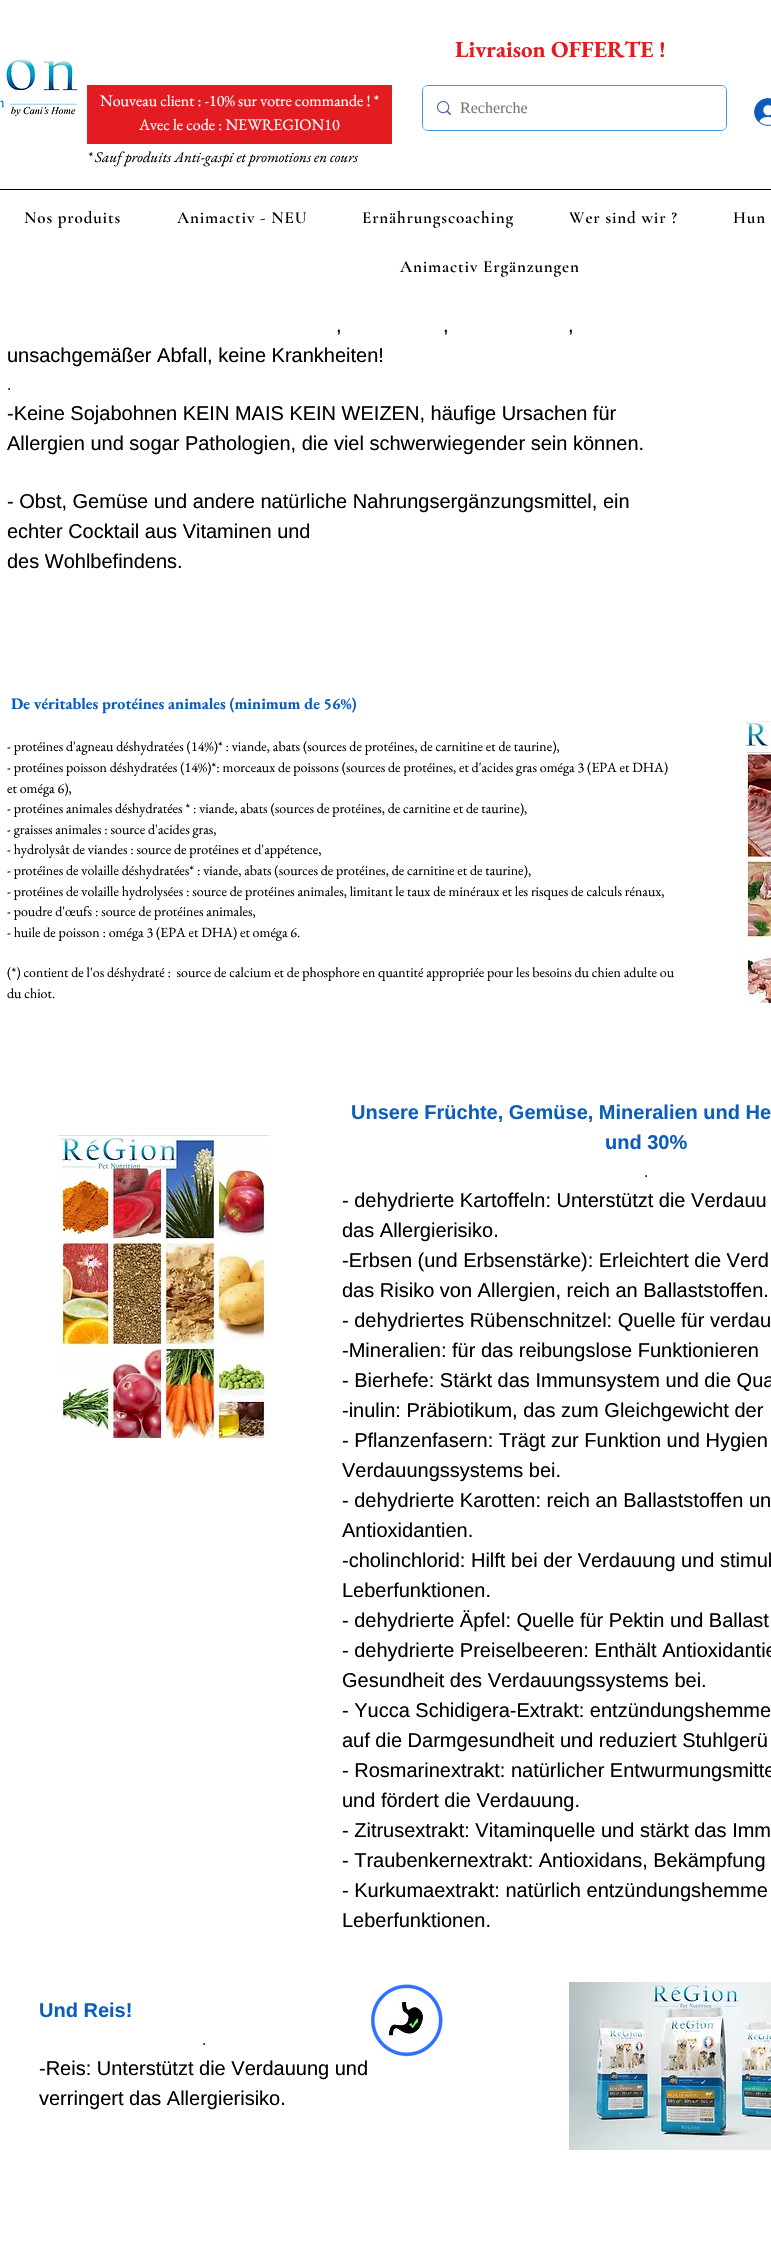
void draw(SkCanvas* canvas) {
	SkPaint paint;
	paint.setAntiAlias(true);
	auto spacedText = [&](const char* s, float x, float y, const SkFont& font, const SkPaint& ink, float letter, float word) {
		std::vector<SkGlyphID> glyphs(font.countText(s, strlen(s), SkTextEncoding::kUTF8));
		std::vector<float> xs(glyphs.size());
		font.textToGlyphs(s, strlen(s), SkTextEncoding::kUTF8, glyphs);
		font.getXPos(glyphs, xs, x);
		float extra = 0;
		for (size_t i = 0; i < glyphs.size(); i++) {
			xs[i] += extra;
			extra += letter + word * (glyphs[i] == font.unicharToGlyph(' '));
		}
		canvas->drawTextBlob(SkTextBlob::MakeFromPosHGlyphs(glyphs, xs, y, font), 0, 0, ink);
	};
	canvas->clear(0xffffffff);
	SkFont f1(fontMgr->matchFamilyStyle("EB Garamond", SkFontStyle::Bold()), 23);
	f1.setSubpixel(true);
	paint.setColor(0xffe21c21);
	canvas->drawString("Livraison OFFERTE !", 455, 57, f1, paint);
	canvas->drawImageRect(SkImages::DeferredFromEncodedData(SkData::MakeFromFileName("img1.png")), SkRect::MakeXYWH(0, 59, 78, 58), SkSamplingOptions());
	canvas->drawRect(SkRect::MakeXYWH(87, 85, 305, 59), paint);
	SkFont f2(fontMgr->matchFamilyStyle("EB Garamond", SkFontStyle::Normal()), 16);
	f2.setSubpixel(true);
	paint.setColor(0xffffffff);
	canvas->drawString("Nouveau client : -10% sur votre commande ! *", 100, 106, f2, paint);
	canvas->drawString("Avec le code : NEWREGION10", 139, 130, f2, paint);
	paint.setStroke(true);
	paint.setStrokeWidth(1);
	paint.setColor(0xff3d9be9);
	canvas->drawRoundRect(SkRect::MakeXYWH(422.5, 85.5, 304, 45), 5.5, 5.5, paint);
	paint.setStroke(false);
	paint.setColor(0xffffffff);
	canvas->drawRoundRect(SkRect::MakeXYWH(423, 86, 303, 44), 5, 5, paint);
	canvas->drawImageRect(SkImages::DeferredFromEncodedData(SkData::MakeFromFileName("img2.png")), SkRect::MakeXYWH(437, 101, 14, 14), SkSamplingOptions());
	SkFont f3(fontMgr->matchFamilyStyle("Liberation Serif", SkFontStyle::Normal()), 16);
	f3.setSubpixel(true);
	paint.setColor(0xff787878);
	canvas->drawString("Recherche", 460, 113, f3, paint);
	canvas->drawImageRect(SkImages::DeferredFromEncodedData(SkData::MakeFromFileName("img3.png")), SkRect::MakeXYWH(754, 98, 17, 28), SkSamplingOptions());
	SkFont f4(fontMgr->matchFamilyStyle("EB Garamond", SkFontStyle::Italic()), 15);
	f4.setSubpixel(true);
	paint.setColor(0xff000000);
	canvas->drawString("* Sauf produits Anti-gaspi et promotions en cours", 87, 162, f4, paint);
	canvas->drawRect(SkRect::MakeXYWH(0, 189, 771, 1), paint);
	SkFont f5(fontMgr->matchFamilyStyle("Cormorant Garamond", SkFontStyle(600, SkFontStyle::kNormal_Width, SkFontStyle::kUpright_Slant)), 17);
	f5.setSubpixel(true);
	spacedText("Nos produits", 24, 223, f5, paint, 0.85, 0);
	spacedText("Animactiv - NEU", 177, 223, f5, paint, 0.85, 0);
	spacedText("Ernährungscoaching", 362, 223, f5, paint, 0.85, 0);
	spacedText("Wer sind wir ?", 569, 223, f5, paint, 0.85, 0);
	spacedText("Hun", 733, 223, f5, paint, 0.85, 0);
	spacedText("Animactiv Ergänzungen", 400, 272, f5, paint, 0.85, 0);
	SkFont f6(fontMgr->matchFamilyStyle("Liberation Sans", SkFontStyle::Normal()), 20);
	f6.setSubpixel(true);
	canvas->drawString(",", 336, 332, f6, paint);
	canvas->drawString(",", 443, 332, f6, paint);
	canvas->drawString(",", 568, 332, f6, paint);
	canvas->drawString("unsachgemäßer Abfall, keine Krankheiten!", 7, 362, f6, paint);
	SkFont f7(fontMgr->matchFamilyStyle("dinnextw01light", SkFontStyle(300, SkFontStyle::kNormal_Width, SkFontStyle::kUpright_Slant)), 20);
	f7.setSubpixel(true);
	canvas->drawString(".", 7, 390, f7, paint);
	canvas->drawString("-Keine Sojabohnen KEIN MAIS KEIN WEIZEN, häufige Ursachen für", 7, 420, f6, paint);
	canvas->drawString("Allergien und sogar Pathologien, die viel schwerwiegender sein können.", 7, 450, f6, paint);
	canvas->drawString("- Obst, Gemüse und andere natürliche Nahrungsergänzungsmittel, ein", 7, 508, f6, paint);
	canvas->drawString("echter Cocktail aus Vitaminen und", 7, 538, f6, paint);
	canvas->drawString("des Wohlbefindens.", 7, 568, f6, paint);
	SkFont f8(fontMgr->matchFamilyStyle("EB Garamond", SkFontStyle::Bold()), 16);
	f8.setSubpixel(true);
	paint.setColor(0xff0d5eba);
	canvas->drawString("De véritables protéines animales (minimum de 56%)", 11, 709, f8, paint);
	SkFont f9(fontMgr->matchFamilyStyle("EB Garamond", SkFontStyle::Normal()), 14);
	f9.setSubpixel(true);
	paint.setColor(0xff000000);
	canvas->drawString("- protéines d'agneau déshydratées (14%)* : viande, abats (sources de protéines, de carnitine et de taurine),", 7, 751, f9, paint);
	canvas->drawString("- protéines poisson déshydratées (14%)*: morceaux de poissons (sources de protéines, et d'acides gras oméga 3 (EPA et DHA)", 7, 772, f9, paint);
	canvas->drawString("et oméga 6),", 7, 793, f9, paint);
	canvas->drawString("- protéines animales déshydratées * : viande, abats (sources de protéines, de carnitine et de taurine),", 7, 813, f9, paint);
	canvas->drawString("- graisses animales : source d'acides gras,", 7, 834, f9, paint);
	canvas->drawString("- hydrolysât de viandes : source de protéines et d'appétence,", 7, 854, f9, paint);
	canvas->drawString("- protéines de volaille déshydratées* : viande, abats (sources de protéines, de carnitine et de taurine),", 7, 875, f9, paint);
	canvas->drawString("- protéines de volaille hydrolysées : source de protéines animales, limitant le taux de minéraux et les risques de calculs rénaux,", 7, 896, f9, paint);
	canvas->drawString("- poudre d'œufs : source de protéines animales,", 7, 916, f9, paint);
	canvas->drawString("- huile de poisson : oméga 3 (EPA et DHA) et oméga 6.", 7, 937, f9, paint);
	canvas->drawString("(*) contient de l'os déshydraté :  source de calcium et de phosphore en quantité appropriée pour les besoins du chien adulte ou", 7, 977, f9, paint);
	canvas->drawString("du chiot.", 7, 998, f9, paint);
	canvas->drawImageRect(SkImages::DeferredFromEncodedData(SkData::MakeFromFileName("img4.png")), SkRect::MakeXYWH(743, 721, 28, 282), SkSamplingOptions());
	canvas->drawImageRect(SkImages::DeferredFromEncodedData(SkData::MakeFromFileName("img5.png")), SkRect::MakeXYWH(58, 1135, 211, 303), SkSamplingOptions());
	SkFont f10(fontMgr->matchFamilyStyle("Liberation Sans", SkFontStyle::Bold()), 20);
	f10.setSubpixel(true);
	paint.setColor(0xff0d5eba);
	canvas->drawString("Unsere Früchte, Gemüse, Mineralien und He", 351, 1119, f10, paint);
	canvas->drawString("und 30%", 605, 1149, f10, paint);
	paint.setColor(0xff000000);
	canvas->drawString(".", 644, 1177, f7, paint);
	canvas->drawString("- dehydrierte Kartoffeln: Unterstützt die Verdauu", 342, 1207, f6, paint);
	canvas->drawString("das Allergierisiko.", 342, 1237, f6, paint);
	canvas->drawString("-Erbsen (und Erbsenstärke): Erleichtert die Verd", 342, 1267, f6, paint);
	canvas->drawString("das Risiko von Allergien, reich an Ballaststoffen.", 342, 1297, f6, paint);
	canvas->drawString("- dehydriertes Rübenschnitzel: Quelle für verdau", 342, 1327, f6, paint);
	canvas->drawString("-Mineralien: für das reibungslose Funktionieren", 342, 1357, f6, paint);
	canvas->drawString("- Bierhefe: Stärkt das Immunsystem und die Qua", 342, 1387, f6, paint);
	canvas->drawString("-inulin: Präbiotikum, das zum Gleichgewicht der", 342, 1417, f6, paint);
	canvas->drawString("- Pflanzenfasern: Trägt zur Funktion und Hygien", 342, 1447, f6, paint);
	canvas->drawString("Verdauungssystems bei.", 342, 1477, f6, paint);
	canvas->drawString("- dehydrierte Karotten: reich an Ballaststoffen un", 342, 1507, f6, paint);
	canvas->drawString("Antioxidantien.", 342, 1537, f6, paint);
	canvas->drawString("-cholinchlorid: Hilft bei der Verdauung und stimul", 342, 1567, f6, paint);
	canvas->drawString("Leberfunktionen.", 342, 1597, f6, paint);
	canvas->drawString("- dehydrierte Äpfel: Quelle für Pektin und Ballast", 342, 1627, f6, paint);
	canvas->drawString("- dehydrierte Preiselbeeren: Enthält Antioxidantie", 342, 1657, f6, paint);
	canvas->drawString("Gesundheit des Verdauungssystems bei.", 342, 1687, f6, paint);
	canvas->drawString("- Yucca Schidigera-Extrakt: entzündungshemme", 342, 1717, f6, paint);
	canvas->drawString("auf die Darmgesundheit und reduziert Stuhlgerü", 342, 1747, f6, paint);
	canvas->drawString("- Rosmarinextrakt: natürlicher Entwurmungsmitte", 342, 1777, f6, paint);
	canvas->drawString("und fördert die Verdauung.", 342, 1807, f6, paint);
	canvas->drawString("- Zitrusextrakt: Vitaminquelle und stärkt das Imm", 342, 1837, f6, paint);
	canvas->drawString("- Traubenkernextrakt: Antioxidans, Bekämpfung", 342, 1867, f6, paint);
	canvas->drawString("- Kurkumaextrakt: natürlich entzündungshemme", 342, 1897, f6, paint);
	canvas->drawString("Leberfunktionen.", 342, 1927, f6, paint);
	paint.setColor(0xff0d5eba);
	canvas->drawString("Und Reis!", 39, 2017, f10, paint);
	paint.setColor(0xff000000);
	canvas->drawString(".", 202, 2045, f7, paint);
	canvas->drawString("-Reis: Unterstützt die Verdauung und", 39, 2075, f6, paint);
	canvas->drawString("verringert das Allergierisiko.", 39, 2105, f6, paint);
	canvas->drawImageRect(SkImages::DeferredFromEncodedData(SkData::MakeFromFileName("img6.png")), SkRect::MakeXYWH(370, 1984, 73, 73), SkSamplingOptions());
	canvas->drawImageRect(SkImages::DeferredFromEncodedData(SkData::MakeFromFileName("img7.png")), SkRect::MakeXYWH(569, 1982, 202, 168), SkSamplingOptions());
}
